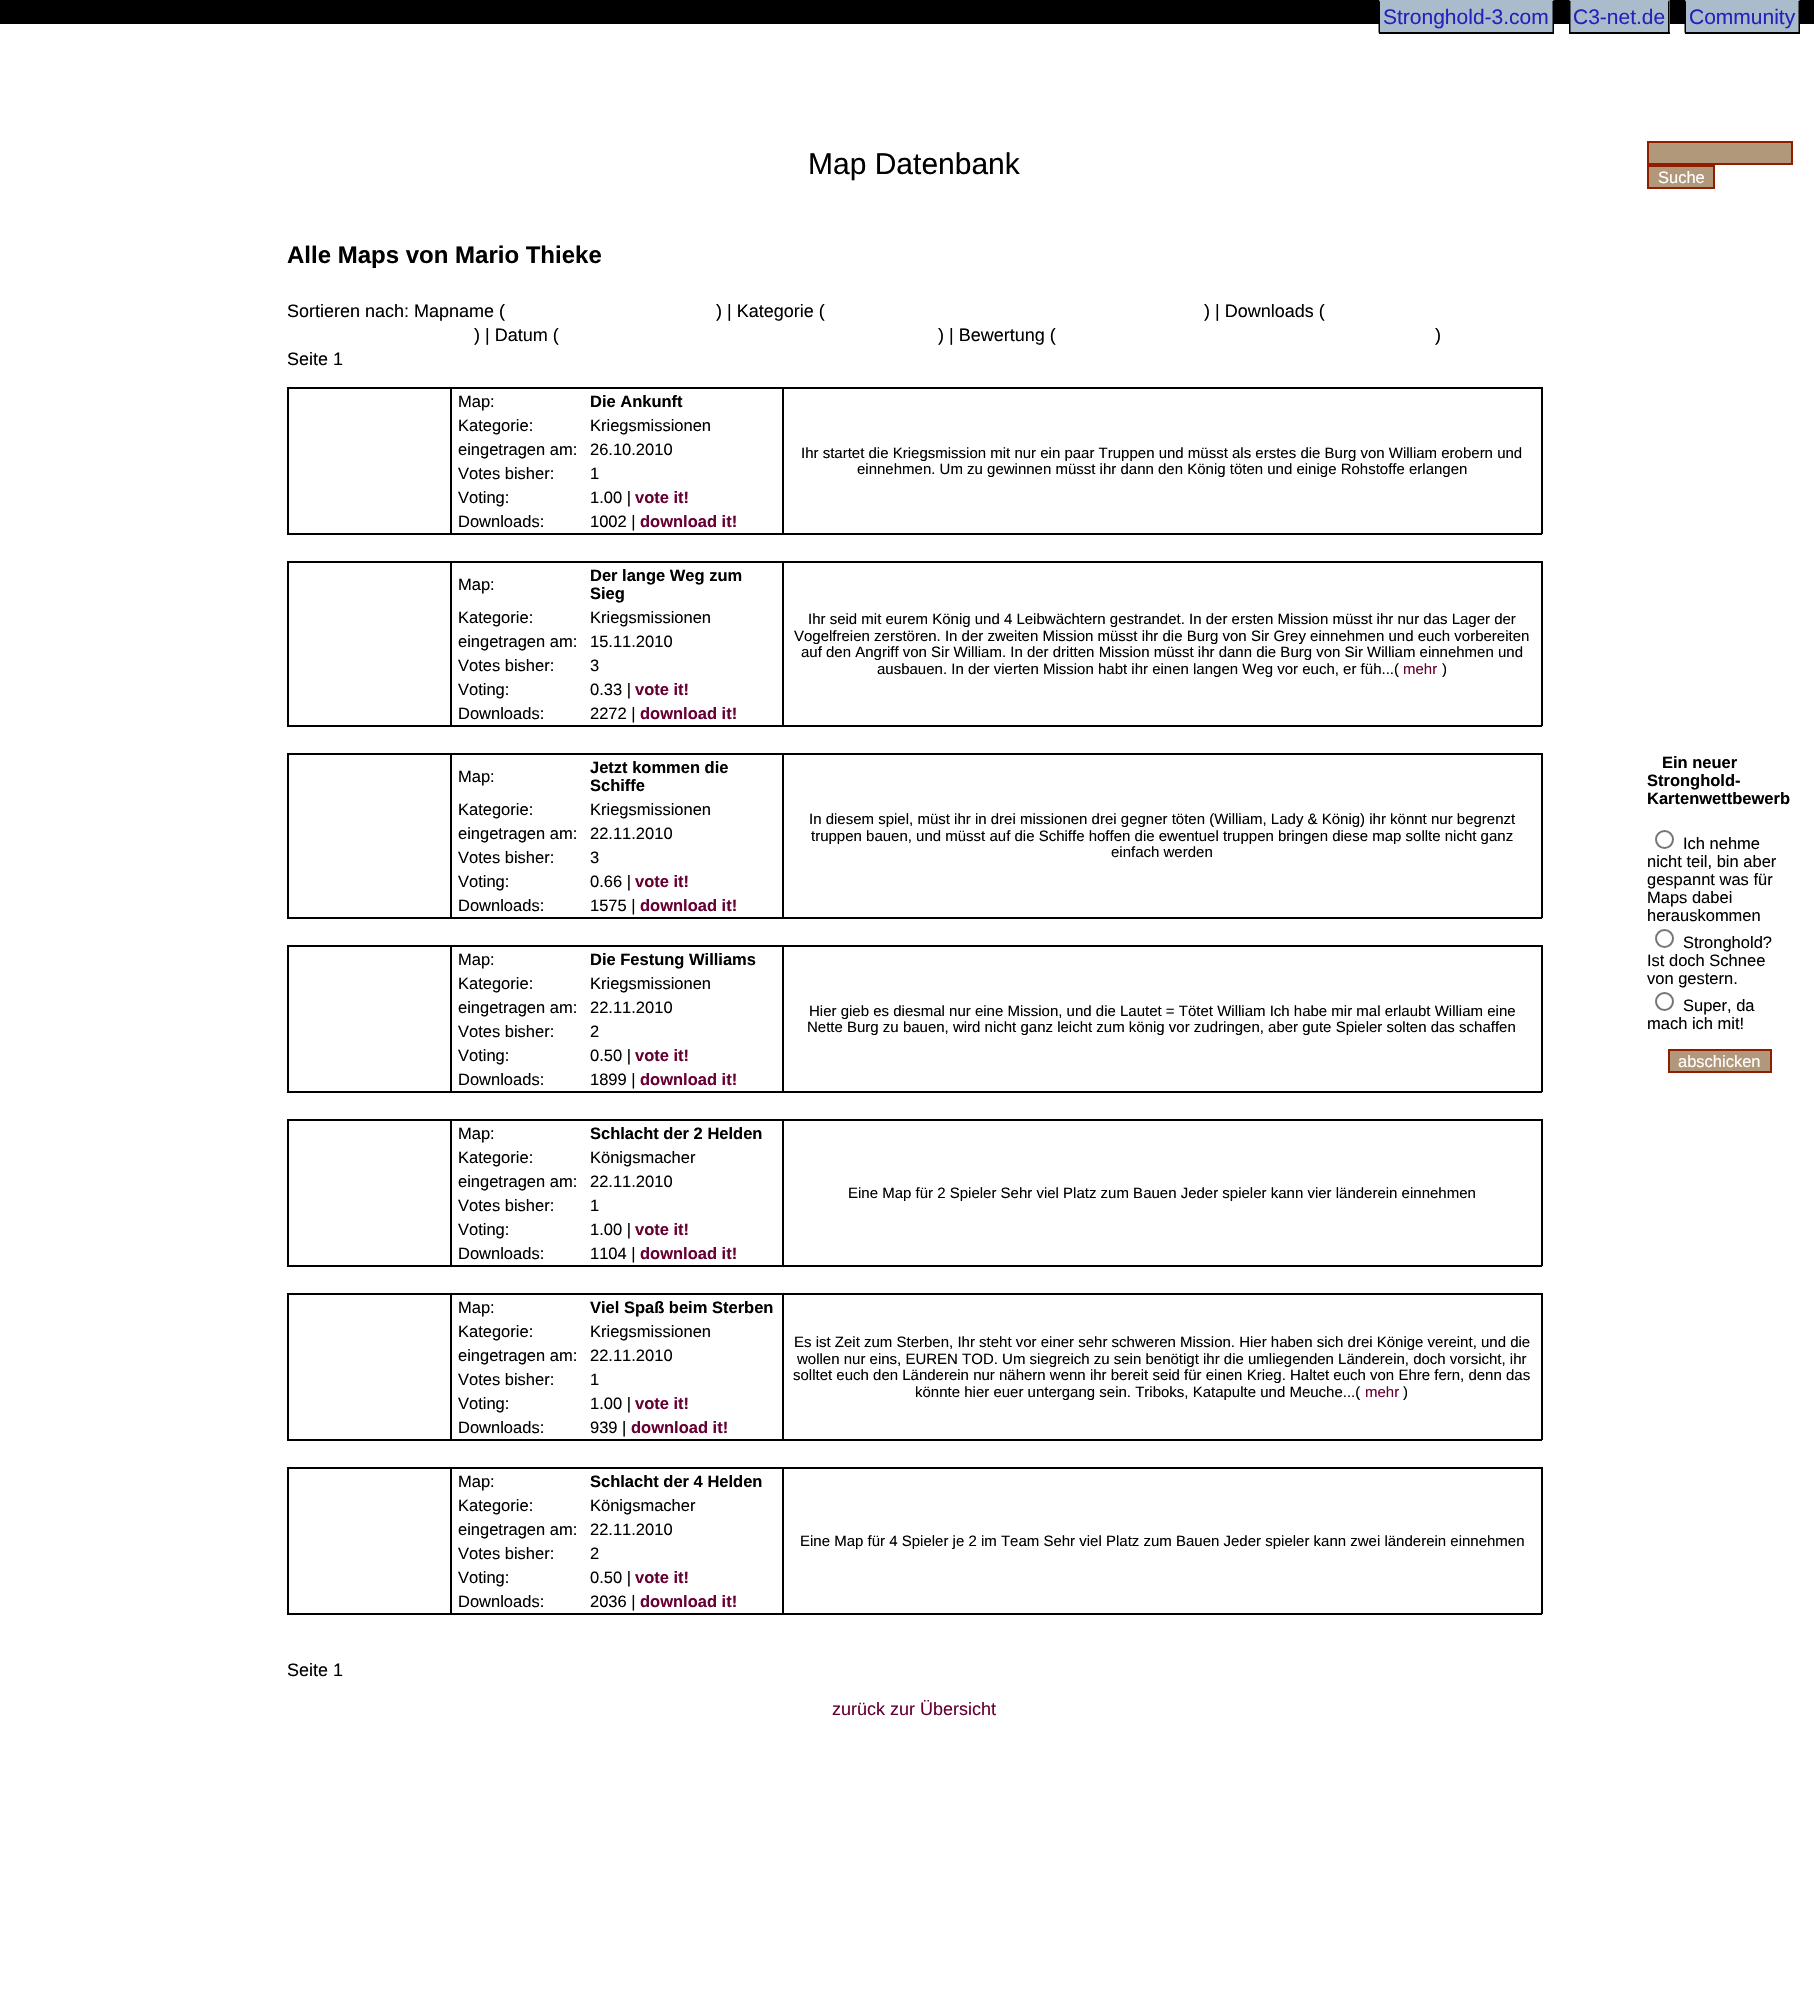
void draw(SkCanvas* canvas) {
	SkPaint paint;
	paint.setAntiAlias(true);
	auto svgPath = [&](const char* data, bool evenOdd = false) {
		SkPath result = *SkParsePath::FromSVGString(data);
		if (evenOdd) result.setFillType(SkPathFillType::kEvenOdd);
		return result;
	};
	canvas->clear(0xffffffff);
	paint.setColor(0xff000000);
	canvas->drawRect(SkRect::MakeXYWH(0, 0, 1814, 24), paint);
	paint.setColor(0xffaabbcc);
	canvas->drawRect(SkRect::MakeXYWH(1379, 0, 175, 32), paint);
	paint.setColor(0xff000000);
	canvas->drawPath(svgPath("M1554 0V33L1552.5 31.5V1.5Z"), paint);
	canvas->drawRect(SkRect::MakeXYWH(1379, 32, 175, 2), paint);
	canvas->drawPath(svgPath("M1378.5 33V0L1380 1.5V31.5Z"), paint);
	SkFont f1(fontMgr->matchFamilyStyle("Liberation Sans", SkFontStyle::Normal()), 21);
	f1.setSubpixel(true);
	paint.setColor(0xff2222bb);
	canvas->drawString("Stronghold-3.com", 1383, 24, f1, paint);
	paint.setColor(0xffaabbcc);
	canvas->drawRect(SkRect::MakeXYWH(1569, 0, 101, 32), paint);
	paint.setColor(0xff000000);
	canvas->drawPath(svgPath("M1669.5 0V33L1668 31.5V1.5Z"), paint);
	canvas->drawRect(SkRect::MakeXYWH(1569, 32, 101, 2), paint);
	canvas->drawPath(svgPath("M1569 33V0L1570.5 1.5V31.5Z"), paint);
	paint.setColor(0xff2222bb);
	canvas->drawString("C3-net.de", 1573, 24, f1, paint);
	paint.setColor(0xffaabbcc);
	canvas->drawRect(SkRect::MakeXYWH(1685, 0, 115, 32), paint);
	paint.setColor(0xff000000);
	canvas->drawPath(svgPath("M1800 0V33L1798.5 31.5V1.5Z"), paint);
	canvas->drawRect(SkRect::MakeXYWH(1685, 32, 115, 2), paint);
	canvas->drawPath(svgPath("M1684.5 33V0L1686 1.5V31.5Z"), paint);
	paint.setColor(0xff2222bb);
	canvas->drawString("Community", 1689, 24, f1, paint);
	SkFont f2(fontMgr->matchFamilyStyle("Liberation Sans", SkFontStyle::Normal()), 30);
	f2.setSubpixel(true);
	paint.setColor(0xff000000);
	canvas->drawString("Map Datenbank", 808, 174, f2, paint);
	SkFont f3(fontMgr->matchFamilyStyle("Liberation Sans", SkFontStyle::Bold()), 24);
	f3.setSubpixel(true);
	canvas->drawString("Alle Maps von Mario Thieke", 287, 263, f3, paint);
	SkFont f4(fontMgr->matchFamilyStyle("Liberation Sans", SkFontStyle::Normal()), 18);
	f4.setSubpixel(true);
	canvas->drawString("Sortieren nach: Mapname (", 287, 317, f4, paint);
	canvas->drawString(") | Kategorie (", 716, 317, f4, paint);
	canvas->drawString(") | Downloads (", 1204, 317, f4, paint);
	canvas->drawString(") | Datum (", 474, 341, f4, paint);
	canvas->drawString(") | Bewertung (", 938, 341, f4, paint);
	canvas->drawString(")", 1435, 341, f4, paint);
	canvas->drawString("Seite 1", 287, 365, f4, paint);
	canvas->drawRect(SkRect::MakeXYWH(287, 387, 1255, 2), paint);
	canvas->drawRect(SkRect::MakeXYWH(1541, 387, 2, 147), paint);
	canvas->drawRect(SkRect::MakeXYWH(287, 533, 1255, 2), paint);
	canvas->drawRect(SkRect::MakeXYWH(287, 387, 2, 147), paint);
	canvas->drawRect(SkRect::MakeXYWH(450, 387, 2, 147), paint);
	SkFont f5(fontMgr->matchFamilyStyle("Liberation Sans", SkFontStyle::Normal()), 16.5);
	f5.setSubpixel(true);
	canvas->drawString("Map:", 458, 407, f5, paint);
	SkFont f6(fontMgr->matchFamilyStyle("Liberation Sans", SkFontStyle::Bold()), 16.5);
	f6.setSubpixel(true);
	canvas->drawString("Die Ankunft", 590, 407, f6, paint);
	canvas->drawString("Kategorie:", 458, 431, f5, paint);
	canvas->drawString("Kriegsmissionen", 590, 431, f5, paint);
	canvas->drawString("eingetragen am:", 458, 455, f5, paint);
	canvas->drawString("26.10.2010", 590, 455, f5, paint);
	canvas->drawString("Votes bisher:", 458, 479, f5, paint);
	canvas->drawString("1", 590, 479, f5, paint);
	canvas->drawString("Voting:", 458, 503, f5, paint);
	canvas->drawString("1.00 |", 590, 503, f5, paint);
	paint.setColor(0xff660033);
	canvas->drawString("vote it!", 635, 503, f6, paint);
	paint.setColor(0xff000000);
	canvas->drawString("Downloads:", 458, 527, f5, paint);
	canvas->drawString("1002 |", 590, 527, f5, paint);
	paint.setColor(0xff660033);
	canvas->drawString("download it!", 640, 527, f6, paint);
	paint.setColor(0xff000000);
	canvas->drawRect(SkRect::MakeXYWH(782, 387, 2, 147), paint);
	SkFont f7(fontMgr->matchFamilyStyle("Liberation Sans", SkFontStyle::Normal()), 15);
	f7.setSubpixel(true);
	canvas->drawString("Ihr startet die Kriegsmission mit nur ein paar Truppen und müsst als erstes die Burg von William erobern und", 801, 458, f7, paint);
	canvas->drawString("einnehmen. Um zu gewinnen müsst ihr dann den König töten und einige Rohstoffe erlangen", 857, 474, f7, paint);
	canvas->drawRect(SkRect::MakeXYWH(287, 561, 1255, 2), paint);
	canvas->drawRect(SkRect::MakeXYWH(1541, 561, 2, 165), paint);
	canvas->drawRect(SkRect::MakeXYWH(287, 725, 1255, 2), paint);
	canvas->drawRect(SkRect::MakeXYWH(287, 561, 2, 165), paint);
	canvas->drawRect(SkRect::MakeXYWH(450, 561, 2, 165), paint);
	canvas->drawString("Map:", 458, 590, f5, paint);
	canvas->drawString("Der lange Weg zum", 590, 581, f6, paint);
	canvas->drawString("Sieg", 590, 599, f6, paint);
	canvas->drawString("Kategorie:", 458, 623, f5, paint);
	canvas->drawString("Kriegsmissionen", 590, 623, f5, paint);
	canvas->drawString("eingetragen am:", 458, 647, f5, paint);
	canvas->drawString("15.11.2010", 590, 647, f5, paint);
	canvas->drawString("Votes bisher:", 458, 671, f5, paint);
	canvas->drawString("3", 590, 671, f5, paint);
	canvas->drawString("Voting:", 458, 695, f5, paint);
	canvas->drawString("0.33 |", 590, 695, f5, paint);
	paint.setColor(0xff660033);
	canvas->drawString("vote it!", 635, 695, f6, paint);
	paint.setColor(0xff000000);
	canvas->drawString("Downloads:", 458, 719, f5, paint);
	canvas->drawString("2272 |", 590, 719, f5, paint);
	paint.setColor(0xff660033);
	canvas->drawString("download it!", 640, 719, f6, paint);
	paint.setColor(0xff000000);
	canvas->drawRect(SkRect::MakeXYWH(782, 561, 2, 165), paint);
	canvas->drawString("Ihr seid mit eurem König und 4 Leibwächtern gestrandet. In der ersten Mission müsst ihr nur das Lager der", 808, 624, f7, paint);
	canvas->drawString("Vogelfreien zerstören. In der zweiten Mission müsst ihr die Burg von Sir Grey einnehmen und euch vorbereiten", 794, 641, f7, paint);
	canvas->drawString("auf den Angriff von Sir William. In der dritten Mission müsst ihr dann die Burg von Sir William einnehmen und", 801, 657, f7, paint);
	canvas->drawString("ausbauen. In der vierten Mission habt ihr einen langen Weg vor euch, er füh...(", 877, 674, f7, paint);
	paint.setColor(0xff660033);
	canvas->drawString("mehr", 1403, 674, f7, paint);
	paint.setColor(0xff000000);
	canvas->drawString(")", 1442, 674, f7, paint);
	canvas->drawRect(SkRect::MakeXYWH(287, 753, 1255, 2), paint);
	canvas->drawRect(SkRect::MakeXYWH(1541, 753, 2, 165), paint);
	canvas->drawRect(SkRect::MakeXYWH(287, 917, 1255, 2), paint);
	canvas->drawRect(SkRect::MakeXYWH(287, 753, 2, 165), paint);
	canvas->drawRect(SkRect::MakeXYWH(450, 753, 2, 165), paint);
	canvas->drawString("Map:", 458, 782, f5, paint);
	canvas->drawString("Jetzt kommen die", 590, 773, f6, paint);
	canvas->drawString("Schiffe", 590, 791, f6, paint);
	canvas->drawString("Kategorie:", 458, 815, f5, paint);
	canvas->drawString("Kriegsmissionen", 590, 815, f5, paint);
	canvas->drawString("eingetragen am:", 458, 839, f5, paint);
	canvas->drawString("22.11.2010", 590, 839, f5, paint);
	canvas->drawString("Votes bisher:", 458, 863, f5, paint);
	canvas->drawString("3", 590, 863, f5, paint);
	canvas->drawString("Voting:", 458, 887, f5, paint);
	canvas->drawString("0.66 |", 590, 887, f5, paint);
	paint.setColor(0xff660033);
	canvas->drawString("vote it!", 635, 887, f6, paint);
	paint.setColor(0xff000000);
	canvas->drawString("Downloads:", 458, 911, f5, paint);
	canvas->drawString("1575 |", 590, 911, f5, paint);
	paint.setColor(0xff660033);
	canvas->drawString("download it!", 640, 911, f6, paint);
	paint.setColor(0xff000000);
	canvas->drawRect(SkRect::MakeXYWH(782, 753, 2, 165), paint);
	canvas->drawString("In diesem spiel, müst ihr in drei missionen drei gegner töten (William, Lady & König) ihr könnt nur begrenzt", 809, 824, f7, paint);
	canvas->drawString("truppen bauen, und müsst auf die Schiffe hoffen die ewentuel truppen bringen diese map sollte nicht ganz", 811, 841, f7, paint);
	canvas->drawString("einfach werden", 1111, 857, f7, paint);
	canvas->drawRect(SkRect::MakeXYWH(287, 945, 1255, 2), paint);
	canvas->drawRect(SkRect::MakeXYWH(1541, 945, 2, 147), paint);
	canvas->drawRect(SkRect::MakeXYWH(287, 1091, 1255, 2), paint);
	canvas->drawRect(SkRect::MakeXYWH(287, 945, 2, 147), paint);
	canvas->drawRect(SkRect::MakeXYWH(450, 945, 2, 147), paint);
	canvas->drawString("Map:", 458, 965, f5, paint);
	canvas->drawString("Die Festung Williams", 590, 965, f6, paint);
	canvas->drawString("Kategorie:", 458, 989, f5, paint);
	canvas->drawString("Kriegsmissionen", 590, 989, f5, paint);
	canvas->drawString("eingetragen am:", 458, 1013, f5, paint);
	canvas->drawString("22.11.2010", 590, 1013, f5, paint);
	canvas->drawString("Votes bisher:", 458, 1037, f5, paint);
	canvas->drawString("2", 590, 1037, f5, paint);
	canvas->drawString("Voting:", 458, 1061, f5, paint);
	canvas->drawString("0.50 |", 590, 1061, f5, paint);
	paint.setColor(0xff660033);
	canvas->drawString("vote it!", 635, 1061, f6, paint);
	paint.setColor(0xff000000);
	canvas->drawString("Downloads:", 458, 1085, f5, paint);
	canvas->drawString("1899 |", 590, 1085, f5, paint);
	paint.setColor(0xff660033);
	canvas->drawString("download it!", 640, 1085, f6, paint);
	paint.setColor(0xff000000);
	canvas->drawRect(SkRect::MakeXYWH(782, 945, 2, 147), paint);
	canvas->drawString("Hier gieb es diesmal nur eine Mission, und die Lautet = Tötet William Ich habe mir mal erlaubt William eine", 809, 1016, f7, paint);
	canvas->drawString("Nette Burg zu bauen, wird nicht ganz leicht zum könig vor zudringen, aber gute Spieler solten das schaffen", 807, 1032, f7, paint);
	canvas->drawRect(SkRect::MakeXYWH(287, 1119, 1255, 2), paint);
	canvas->drawRect(SkRect::MakeXYWH(1541, 1119, 2, 147), paint);
	canvas->drawRect(SkRect::MakeXYWH(287, 1265, 1255, 2), paint);
	canvas->drawRect(SkRect::MakeXYWH(287, 1119, 2, 147), paint);
	canvas->drawRect(SkRect::MakeXYWH(450, 1119, 2, 147), paint);
	canvas->drawString("Map:", 458, 1139, f5, paint);
	canvas->drawString("Schlacht der 2 Helden", 590, 1139, f6, paint);
	canvas->drawString("Kategorie:", 458, 1163, f5, paint);
	canvas->drawString("Königsmacher", 590, 1163, f5, paint);
	canvas->drawString("eingetragen am:", 458, 1187, f5, paint);
	canvas->drawString("22.11.2010", 590, 1187, f5, paint);
	canvas->drawString("Votes bisher:", 458, 1211, f5, paint);
	canvas->drawString("1", 590, 1211, f5, paint);
	canvas->drawString("Voting:", 458, 1235, f5, paint);
	canvas->drawString("1.00 |", 590, 1235, f5, paint);
	paint.setColor(0xff660033);
	canvas->drawString("vote it!", 635, 1235, f6, paint);
	paint.setColor(0xff000000);
	canvas->drawString("Downloads:", 458, 1259, f5, paint);
	canvas->drawString("1104 |", 590, 1259, f5, paint);
	paint.setColor(0xff660033);
	canvas->drawString("download it!", 640, 1259, f6, paint);
	paint.setColor(0xff000000);
	canvas->drawRect(SkRect::MakeXYWH(782, 1119, 2, 147), paint);
	canvas->drawString("Eine Map für 2 Spieler Sehr viel Platz zum Bauen Jeder spieler kann vier länderein einnehmen", 848, 1198, f7, paint);
	canvas->drawRect(SkRect::MakeXYWH(287, 1293, 1255, 2), paint);
	canvas->drawRect(SkRect::MakeXYWH(1541, 1293, 2, 147), paint);
	canvas->drawRect(SkRect::MakeXYWH(287, 1439, 1255, 2), paint);
	canvas->drawRect(SkRect::MakeXYWH(287, 1293, 2, 147), paint);
	canvas->drawRect(SkRect::MakeXYWH(450, 1293, 2, 147), paint);
	canvas->drawString("Map:", 458, 1313, f5, paint);
	canvas->drawString("Viel Spaß beim Sterben", 590, 1313, f6, paint);
	canvas->drawString("Kategorie:", 458, 1337, f5, paint);
	canvas->drawString("Kriegsmissionen", 590, 1337, f5, paint);
	canvas->drawString("eingetragen am:", 458, 1361, f5, paint);
	canvas->drawString("22.11.2010", 590, 1361, f5, paint);
	canvas->drawString("Votes bisher:", 458, 1385, f5, paint);
	canvas->drawString("1", 590, 1385, f5, paint);
	canvas->drawString("Voting:", 458, 1409, f5, paint);
	canvas->drawString("1.00 |", 590, 1409, f5, paint);
	paint.setColor(0xff660033);
	canvas->drawString("vote it!", 635, 1409, f6, paint);
	paint.setColor(0xff000000);
	canvas->drawString("Downloads:", 458, 1433, f5, paint);
	canvas->drawString("939 |", 590, 1433, f5, paint);
	paint.setColor(0xff660033);
	canvas->drawString("download it!", 631, 1433, f6, paint);
	paint.setColor(0xff000000);
	canvas->drawRect(SkRect::MakeXYWH(782, 1293, 2, 147), paint);
	canvas->drawString("Es ist Zeit zum Sterben, Ihr steht vor einer sehr schweren Mission. Hier haben sich drei Könige vereint, und die", 794, 1347, f7, paint);
	canvas->drawString("wollen nur eins, EUREN TOD. Um siegreich zu sein benötigt ihr die umliegenden Länderein, doch vorsicht, ihr", 797, 1364, f7, paint);
	canvas->drawString("solltet euch den Länderein nur nähern wenn ihr bereit seid für einen Krieg. Haltet euch von Ehre fern, denn das", 793, 1380, f7, paint);
	canvas->drawString("könnte hier euer untergang sein. Triboks, Katapulte und Meuche...(", 915, 1397, f7, paint);
	paint.setColor(0xff660033);
	canvas->drawString("mehr", 1365, 1397, f7, paint);
	paint.setColor(0xff000000);
	canvas->drawString(")", 1403, 1397, f7, paint);
	canvas->drawRect(SkRect::MakeXYWH(287, 1467, 1255, 2), paint);
	canvas->drawRect(SkRect::MakeXYWH(1541, 1467, 2, 147), paint);
	canvas->drawRect(SkRect::MakeXYWH(287, 1613, 1255, 2), paint);
	canvas->drawRect(SkRect::MakeXYWH(287, 1467, 2, 147), paint);
	canvas->drawRect(SkRect::MakeXYWH(450, 1467, 2, 147), paint);
	canvas->drawString("Map:", 458, 1487, f5, paint);
	canvas->drawString("Schlacht der 4 Helden", 590, 1487, f6, paint);
	canvas->drawString("Kategorie:", 458, 1511, f5, paint);
	canvas->drawString("Königsmacher", 590, 1511, f5, paint);
	canvas->drawString("eingetragen am:", 458, 1535, f5, paint);
	canvas->drawString("22.11.2010", 590, 1535, f5, paint);
	canvas->drawString("Votes bisher:", 458, 1559, f5, paint);
	canvas->drawString("2", 590, 1559, f5, paint);
	canvas->drawString("Voting:", 458, 1583, f5, paint);
	canvas->drawString("0.50 |", 590, 1583, f5, paint);
	paint.setColor(0xff660033);
	canvas->drawString("vote it!", 635, 1583, f6, paint);
	paint.setColor(0xff000000);
	canvas->drawString("Downloads:", 458, 1607, f5, paint);
	canvas->drawString("2036 |", 590, 1607, f5, paint);
	paint.setColor(0xff660033);
	canvas->drawString("download it!", 640, 1607, f6, paint);
	paint.setColor(0xff000000);
	canvas->drawRect(SkRect::MakeXYWH(782, 1467, 2, 147), paint);
	canvas->drawString("Eine Map für 4 Spieler je 2 im Team Sehr viel Platz zum Bauen Jeder spieler kann zwei länderein einnehmen", 800, 1546, f7, paint);
	canvas->drawString("Seite 1", 287, 1676, f4, paint);
	paint.setColor(0xff660033);
	canvas->drawString("zurück zur Übersicht", 832, 1715, f4, paint);
	paint.setColor(0xffb1987a);
	canvas->drawRect(SkRect::MakeXYWH(1648, 142, 144, 22), paint);
	paint.setStroke(true);
	paint.setStrokeWidth(2);
	paint.setColor(0xff911d00);
	canvas->drawRect(SkRect::MakeXYWH(1648, 142, 144, 22), paint);
	paint.setStroke(false);
	paint.setColor(0xffb1987a);
	canvas->drawRect(SkRect::MakeXYWH(1648, 166, 66, 22), paint);
	paint.setStroke(true);
	paint.setColor(0xff911d00);
	canvas->drawRect(SkRect::MakeXYWH(1648, 166, 66, 22), paint);
	paint.setStroke(false);
	paint.setColor(0xffffffff);
	canvas->drawString("Suche", 1658, 183, f5, paint);
	paint.setColor(0xff000000);
	canvas->drawString("Ein neuer", 1662, 768, f6, paint);
	canvas->drawString("Stronghold-", 1647, 786, f6, paint);
	canvas->drawString("Kartenwettbewerb", 1647, 804, f6, paint);
	paint.setStroke(true);
	paint.setColor(0xff767676);
	canvas->drawCircle(1664.5, 839.5, 8.5, paint);
	paint.setStroke(false);
	paint.setColor(0xff000000);
	canvas->drawString("Ich nehme", 1683, 849, f5, paint);
	canvas->drawString("nicht teil, bin aber", 1647, 867, f5, paint);
	canvas->drawString("gespannt was für", 1647, 885, f5, paint);
	canvas->drawString("Maps dabei", 1647, 903, f5, paint);
	canvas->drawString("herauskommen", 1647, 921, f5, paint);
	paint.setStroke(true);
	paint.setColor(0xff767676);
	canvas->drawCircle(1664.5, 938.5, 8.5, paint);
	paint.setStroke(false);
	paint.setColor(0xff000000);
	canvas->drawString("Stronghold?", 1683, 948, f5, paint);
	canvas->drawString("Ist doch Schnee", 1647, 966, f5, paint);
	canvas->drawString("von gestern.", 1647, 984, f5, paint);
	paint.setStroke(true);
	paint.setColor(0xff767676);
	canvas->drawCircle(1664.5, 1001.5, 8.5, paint);
	paint.setStroke(false);
	paint.setColor(0xff000000);
	canvas->drawString("Super, da", 1683, 1011, f5, paint);
	canvas->drawString("mach ich mit!", 1647, 1029, f5, paint);
	paint.setColor(0xffb1987a);
	canvas->drawRect(SkRect::MakeXYWH(1669, 1050, 102, 22), paint);
	paint.setStroke(true);
	paint.setColor(0xff911d00);
	canvas->drawRect(SkRect::MakeXYWH(1669, 1050, 102, 22), paint);
	paint.setStroke(false);
	paint.setColor(0xffffffff);
	canvas->drawString("abschicken", 1678, 1067, f5, paint);
}
